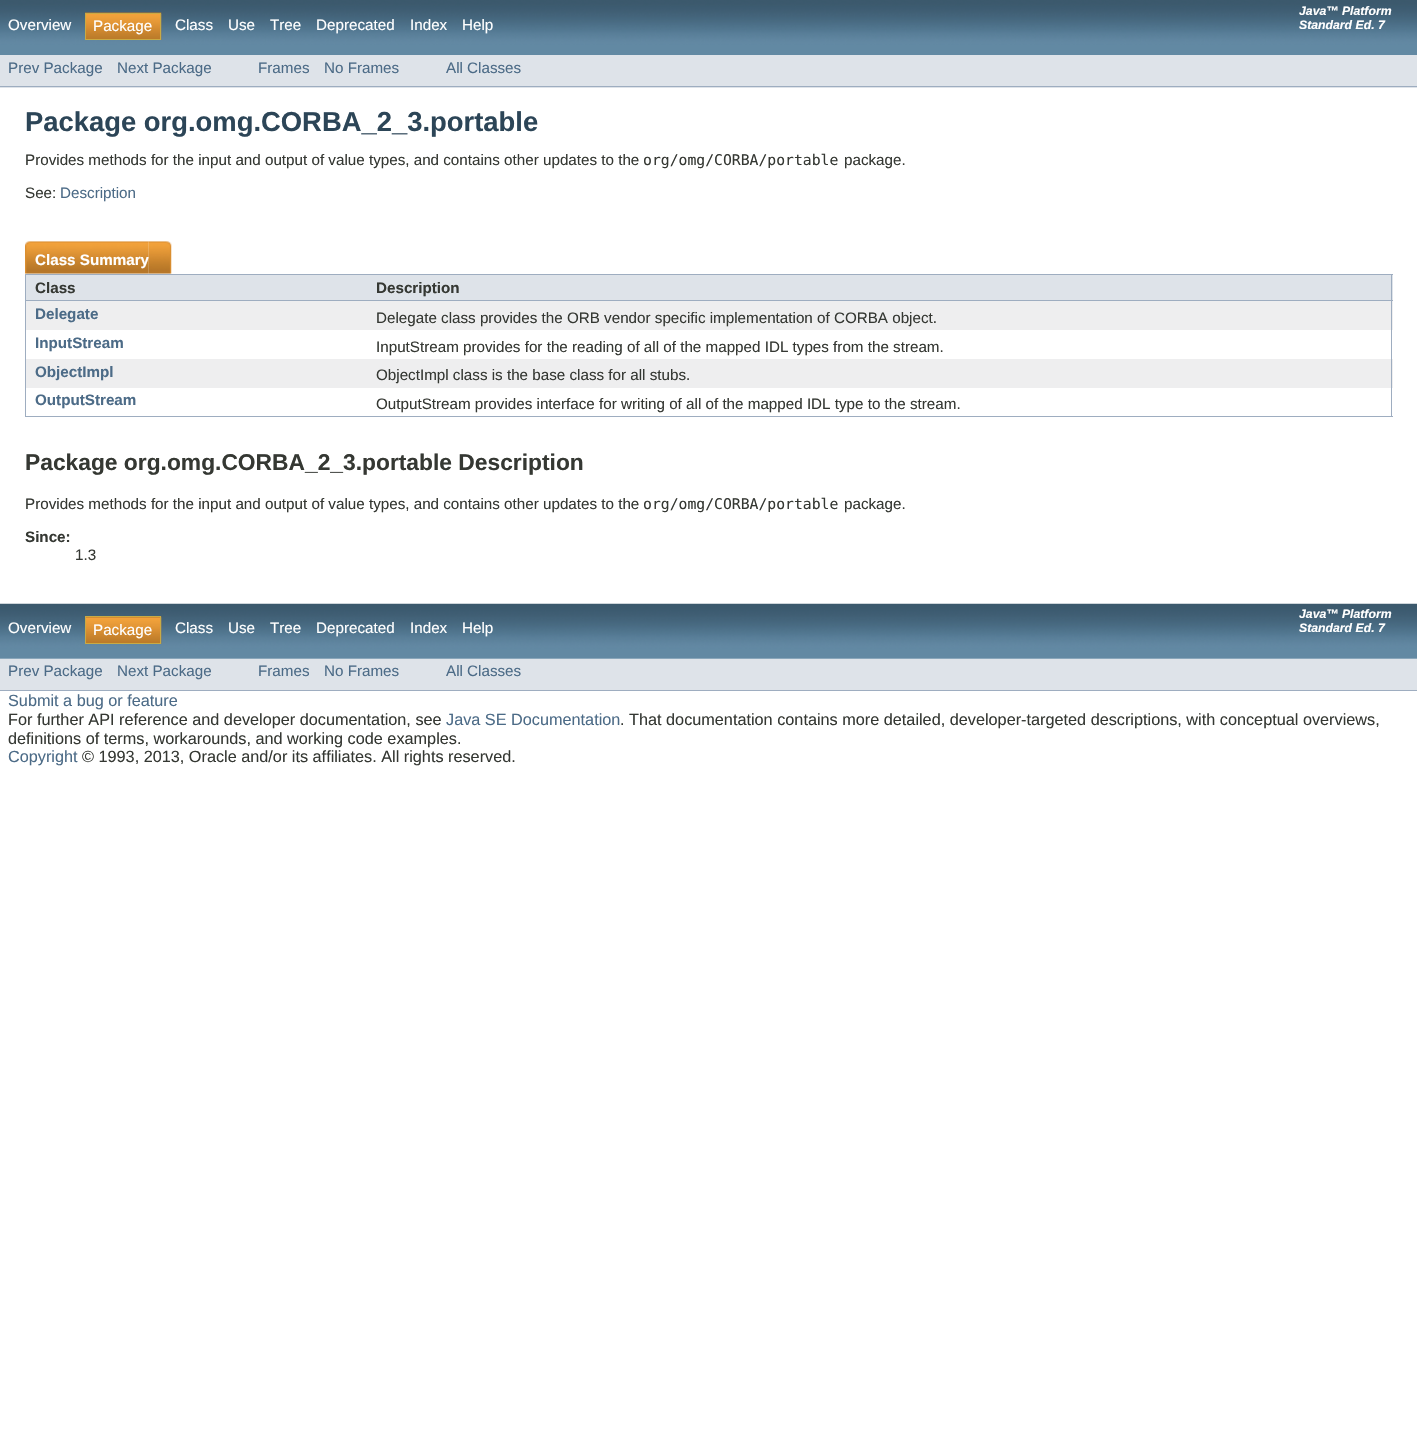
void draw(SkCanvas* canvas) {
	SkPaint paint;
	paint.setAntiAlias(true);
	canvas->clear(0xffffffff);
	canvas->drawImageRect(SkImages::DeferredFromEncodedData(SkData::MakeFromFileName("img1.png")), SkRect::MakeXYWH(0, 0, 1417, 55), SkSamplingOptions());
	SkFont f1(fontMgr->matchFamilyStyle("Liberation Sans", SkFontStyle::Normal()), 15.2);
	f1.setSubpixel(true);
	paint.setColor(0xffffffff);
	canvas->drawString("Overview", 8, 30, f1, paint);
	canvas->drawImageRect(SkImages::DeferredFromEncodedData(SkData::MakeFromFileName("img2.png")), SkRect::MakeXYWH(85, 12, 77, 28), SkSamplingOptions());
	paint.setStroke(true);
	paint.setStrokeWidth(1);
	paint.setColor(0xffc9aa44);
	canvas->drawRect(SkRect::MakeXYWH(85.5, 13.5, 75, 26), paint);
	paint.setStroke(false);
	paint.setColor(0xffffffff);
	canvas->drawString("Package", 93, 31, f1, paint);
	canvas->drawString("Class", 175, 30, f1, paint);
	canvas->drawString("Use", 228, 30, f1, paint);
	canvas->drawString("Tree", 270, 30, f1, paint);
	canvas->drawString("Deprecated", 316, 30, f1, paint);
	canvas->drawString("Index", 410, 30, f1, paint);
	canvas->drawString("Help", 462, 30, f1, paint);
	SkFont f2(fontMgr->matchFamilyStyle("Liberation Sans", SkFontStyle::BoldItalic()), 12.25);
	f2.setSubpixel(true);
	canvas->drawString("Java™ Platform", 1299, 15, f2, paint);
	canvas->drawString("Standard Ed. 7", 1299, 29, f2, paint);
	paint.setColor(0xffdee3e9);
	canvas->drawRect(SkRect::MakeXYWH(0, 55, 1417, 33), paint);
	paint.setColor(0xff9eadc0);
	canvas->drawRect(SkRect::MakeXYWH(0, 86, 1417, 1), paint);
	paint.setColor(0xff4c6b87);
	canvas->drawString("Prev Package", 8, 73, f1, paint);
	canvas->drawString("Next Package", 117, 73, f1, paint);
	canvas->drawString("Frames", 258, 73, f1, paint);
	canvas->drawString("No Frames", 324, 73, f1, paint);
	canvas->drawString("All Classes", 446, 73, f1, paint);
	SkFont f3(fontMgr->matchFamilyStyle("Liberation Sans", SkFontStyle::Bold()), 27.4);
	f3.setSubpixel(true);
	paint.setColor(0xff2c4557);
	canvas->drawString("Package org.omg.CORBA_2_3.portable", 25, 131, f3, paint);
	paint.setColor(0xff353833);
	canvas->drawString("Provides methods for the input and output of value types, and contains other updates to the", 25, 165, f1, paint);
	SkFont f4(fontMgr->matchFamilyStyle("DejaVu Sans Mono", SkFontStyle::Normal()), 14.75);
	f4.setSubpixel(true);
	canvas->drawString("org/omg/CORBA/portable", 643, 165, f4, paint);
	canvas->drawString("package.", 844, 165, f1, paint);
	canvas->drawString("See:", 25, 198, f1, paint);
	paint.setColor(0xff4c6b87);
	canvas->drawString("Description", 60, 198, f1, paint);
	paint.setColor(0xff9eadc0);
	canvas->drawRect(SkRect::MakeXYWH(25, 416, 1368, 1), paint);
	canvas->drawImageRect(SkImages::DeferredFromEncodedData(SkData::MakeFromFileName("img3.png")), SkRect::MakeXYWH(25, 241, 124, 33), SkSamplingOptions());
	SkFont f5(fontMgr->matchFamilyStyle("Liberation Sans", SkFontStyle::Bold()), 15.2);
	f5.setSubpixel(true);
	paint.setColor(0xffffffff);
	canvas->drawString("Class Summary", 35, 265, f5, paint);
	canvas->drawImageRect(SkImages::DeferredFromEncodedData(SkData::MakeFromFileName("img4.png")), SkRect::MakeXYWH(148, 241, 24, 33), SkSamplingOptions());
	paint.setColor(0xffdee3e9);
	canvas->drawRect(SkRect::MakeXYWH(26, 275, 1367, 25), paint);
	paint.setColor(0xff9eadc0);
	canvas->drawRect(SkRect::MakeXYWH(25, 274, 1368, 1), paint);
	canvas->drawRect(SkRect::MakeXYWH(25, 300, 343, 1), paint);
	canvas->drawRect(SkRect::MakeXYWH(25, 274, 1, 142), paint);
	paint.setColor(0xff353833);
	canvas->drawString("Class", 35, 293, f5, paint);
	paint.setColor(0xff9eadc0);
	canvas->drawRect(SkRect::MakeXYWH(1391, 274, 1, 27), paint);
	canvas->drawRect(SkRect::MakeXYWH(368, 300, 1025, 1), paint);
	paint.setColor(0xff353833);
	canvas->drawString("Description", 376, 293, f5, paint);
	paint.setColor(0xffeeeeef);
	canvas->drawRect(SkRect::MakeXYWH(26, 301, 1367, 29), paint);
	paint.setColor(0xff4c6b87);
	canvas->drawString("Delegate", 35, 319, f5, paint);
	paint.setColor(0xff9eadc0);
	canvas->drawRect(SkRect::MakeXYWH(1391, 301, 1, 58), paint);
	paint.setColor(0xff353833);
	canvas->drawString("Delegate class provides the ORB vendor specific implementation of CORBA object.", 376, 323, f1, paint);
	paint.setColor(0xff4c6b87);
	canvas->drawString("InputStream", 35, 348, f5, paint);
	paint.setColor(0xff353833);
	canvas->drawString("InputStream provides for the reading of all of the mapped IDL types from the stream.", 376, 352, f1, paint);
	paint.setColor(0xffeeeeef);
	canvas->drawRect(SkRect::MakeXYWH(26, 359, 1367, 29), paint);
	paint.setColor(0xff4c6b87);
	canvas->drawString("ObjectImpl", 35, 377, f5, paint);
	paint.setColor(0xff9eadc0);
	canvas->drawRect(SkRect::MakeXYWH(1391, 359, 1, 57), paint);
	paint.setColor(0xff353833);
	canvas->drawString("ObjectImpl class is the base class for all stubs.", 376, 380, f1, paint);
	paint.setColor(0xff4c6b87);
	canvas->drawString("OutputStream", 35, 405, f5, paint);
	paint.setColor(0xff353833);
	canvas->drawString("OutputStream provides interface for writing of all of the mapped IDL type to the stream.", 376, 409, f1, paint);
	SkFont f6(fontMgr->matchFamilyStyle("Liberation Sans", SkFontStyle::Bold()), 22.8);
	f6.setSubpixel(true);
	canvas->drawString("Package org.omg.CORBA_2_3.portable Description", 25, 470, f6, paint);
	canvas->drawString("Provides methods for the input and output of value types, and contains other updates to the", 25, 509, f1, paint);
	canvas->drawString("org/omg/CORBA/portable", 643, 509, f4, paint);
	canvas->drawString("package.", 844, 509, f1, paint);
	canvas->drawString("Since:", 25, 542, f5, paint);
	canvas->drawString("1.3", 75, 560, f1, paint);
	canvas->drawImageRect(SkImages::DeferredFromEncodedData(SkData::MakeFromFileName("img5.png")), SkRect::MakeXYWH(0, 603, 1417, 56), SkSamplingOptions());
	paint.setColor(0xffffffff);
	canvas->drawString("Overview", 8, 633, f1, paint);
	canvas->drawImageRect(SkImages::DeferredFromEncodedData(SkData::MakeFromFileName("img6.png")), SkRect::MakeXYWH(86, 616, 76, 28), SkSamplingOptions());
	paint.setStroke(true);
	paint.setColor(0xffc9aa44);
	canvas->drawRect(SkRect::MakeXYWH(85.5, 616.5, 75, 27), paint);
	paint.setStroke(false);
	paint.setColor(0xffffffff);
	canvas->drawString("Package", 93, 635, f1, paint);
	canvas->drawString("Class", 175, 633, f1, paint);
	canvas->drawString("Use", 228, 633, f1, paint);
	canvas->drawString("Tree", 270, 633, f1, paint);
	canvas->drawString("Deprecated", 316, 633, f1, paint);
	canvas->drawString("Index", 410, 633, f1, paint);
	canvas->drawString("Help", 462, 633, f1, paint);
	canvas->drawString("Java™ Platform", 1299, 618, f2, paint);
	canvas->drawString("Standard Ed. 7", 1299, 632, f2, paint);
	paint.setColor(0xffdee3e9);
	canvas->drawRect(SkRect::MakeXYWH(0, 659, 1417, 31), paint);
	paint.setColor(0xff9eadc0);
	canvas->drawRect(SkRect::MakeXYWH(0, 690, 1417, 1), paint);
	paint.setColor(0xff4c6b87);
	canvas->drawString("Prev Package", 8, 676, f1, paint);
	canvas->drawString("Next Package", 117, 676, f1, paint);
	canvas->drawString("Frames", 258, 676, f1, paint);
	canvas->drawString("No Frames", 324, 676, f1, paint);
	canvas->drawString("All Classes", 446, 676, f1, paint);
	SkFont f7(fontMgr->matchFamilyStyle("Liberation Sans", SkFontStyle::Normal()), 16.25);
	f7.setSubpixel(true);
	canvas->drawString("Submit a bug or feature", 8, 706, f7, paint);
	paint.setColor(0xff353833);
	canvas->drawString("For further API reference and developer documentation, see", 8, 725, f7, paint);
	paint.setColor(0xff4c6b87);
	canvas->drawString("Java SE Documentation", 446, 725, f7, paint);
	paint.setColor(0xff353833);
	canvas->drawString(". That documentation contains more detailed, developer-targeted descriptions, with conceptual overviews,", 620, 725, f7, paint);
	canvas->drawString("definitions of terms, workarounds, and working code examples.", 8, 744, f7, paint);
	paint.setColor(0xff4c6b87);
	canvas->drawString("Copyright", 8, 762, f7, paint);
	paint.setColor(0xff353833);
	canvas->drawString("© 1993, 2013, Oracle and/or its affiliates. All rights reserved.", 82, 762, f7, paint);
}
